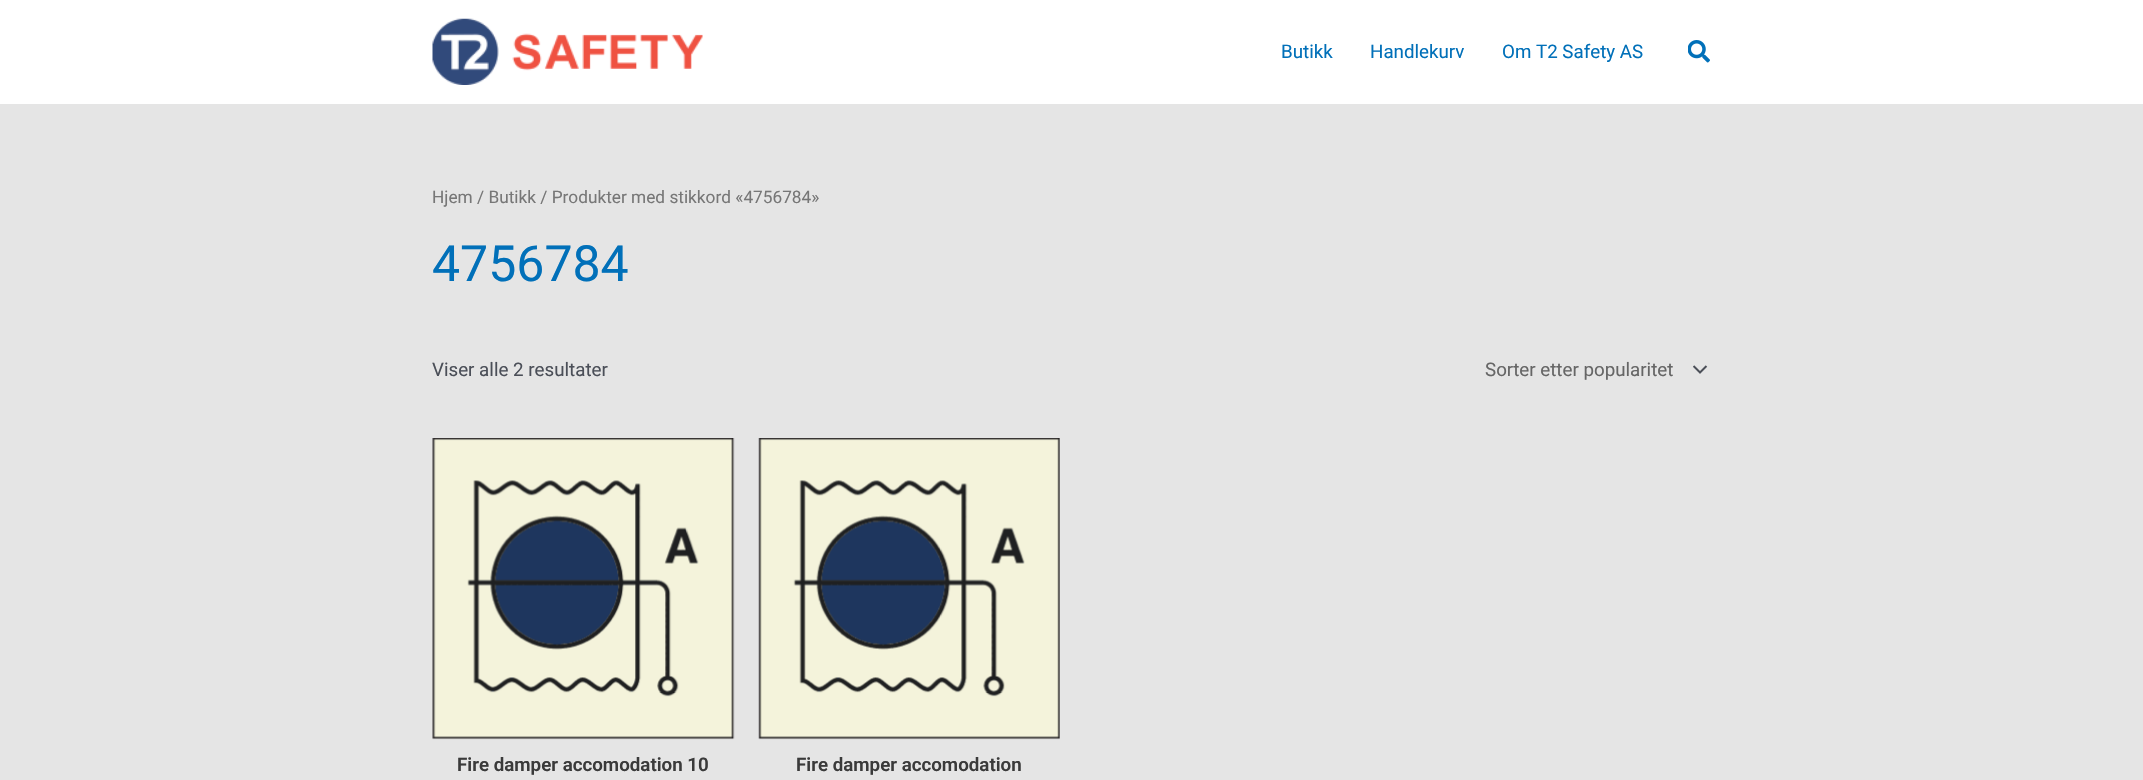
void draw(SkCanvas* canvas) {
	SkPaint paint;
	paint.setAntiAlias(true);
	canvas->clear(0xffe5e5e5);
	paint.setColor(0xffffffff);
	canvas->drawRect(SkRect::MakeXYWH(0, 0, 2143, 104), paint);
	canvas->drawImageRect(SkImages::DeferredFromEncodedData(SkData::MakeFromFileName("img1.png")), SkRect::MakeXYWH(432, 18, 271, 67), SkSamplingOptions());
	SkFont f1(fontMgr->matchFamilyStyle("Roboto", SkFontStyle::Normal()), 18.75);
	f1.setSubpixel(true);
	paint.setColor(0xff0170b9);
	canvas->drawString("Butikk", 1281, 58, f1, paint);
	canvas->drawString("Handlekurv", 1370, 58, f1, paint);
	canvas->drawString("Om T2 Safety AS", 1502, 58, f1, paint);
	canvas->drawImageRect(SkImages::DeferredFromEncodedData(SkData::MakeFromFileName("img2.png")), SkRect::MakeXYWH(1688, 40, 22, 23), SkSamplingOptions());
	SkFont f2(fontMgr->matchFamilyStyle("Roboto", SkFontStyle::Normal()), 17.25);
	f2.setSubpixel(true);
	paint.setColor(0xff777777);
	canvas->drawString("Hjem / Butikk / Produkter med stikkord «4756784»", 432, 203, f2, paint);
	SkFont f3(fontMgr->matchFamilyStyle("Roboto", SkFontStyle::Normal()), 50);
	f3.setSubpixel(true);
	paint.setColor(0xff0170b9);
	canvas->drawString("4756784", 432, 281, f3, paint);
	paint.setColor(0xff4b4f58);
	canvas->drawString("Viser alle 2 resultater", 432, 376, f1, paint);
	canvas->drawImageRect(SkImages::DeferredFromEncodedData(SkData::MakeFromFileName("img3.png")), SkRect::MakeXYWH(1693, 365, 15, 9), SkSamplingOptions());
	paint.setColor(0xff666666);
	canvas->drawString("Sorter etter popularitet", 1485, 376, f1, paint);
	canvas->drawImageRect(SkImages::DeferredFromEncodedData(SkData::MakeFromFileName("img4.png")), SkRect::MakeXYWH(432, 438, 303, 302), SkSamplingOptions());
	SkFont f4(fontMgr->matchFamilyStyle("Roboto", SkFontStyle(600, SkFontStyle::kNormal_Width, SkFontStyle::kUpright_Slant)), 18.75);
	f4.setSubpixel(true);
	paint.setColor(0xff3a3a3a);
	canvas->drawString("Fire damper accomodation 10", 457, 771, f4, paint);
	canvas->drawImageRect(SkImages::DeferredFromEncodedData(SkData::MakeFromFileName("img5.png")), SkRect::MakeXYWH(758, 438, 302, 302), SkSamplingOptions());
	canvas->drawString("Fire damper accomodation", 796, 771, f4, paint);
}
